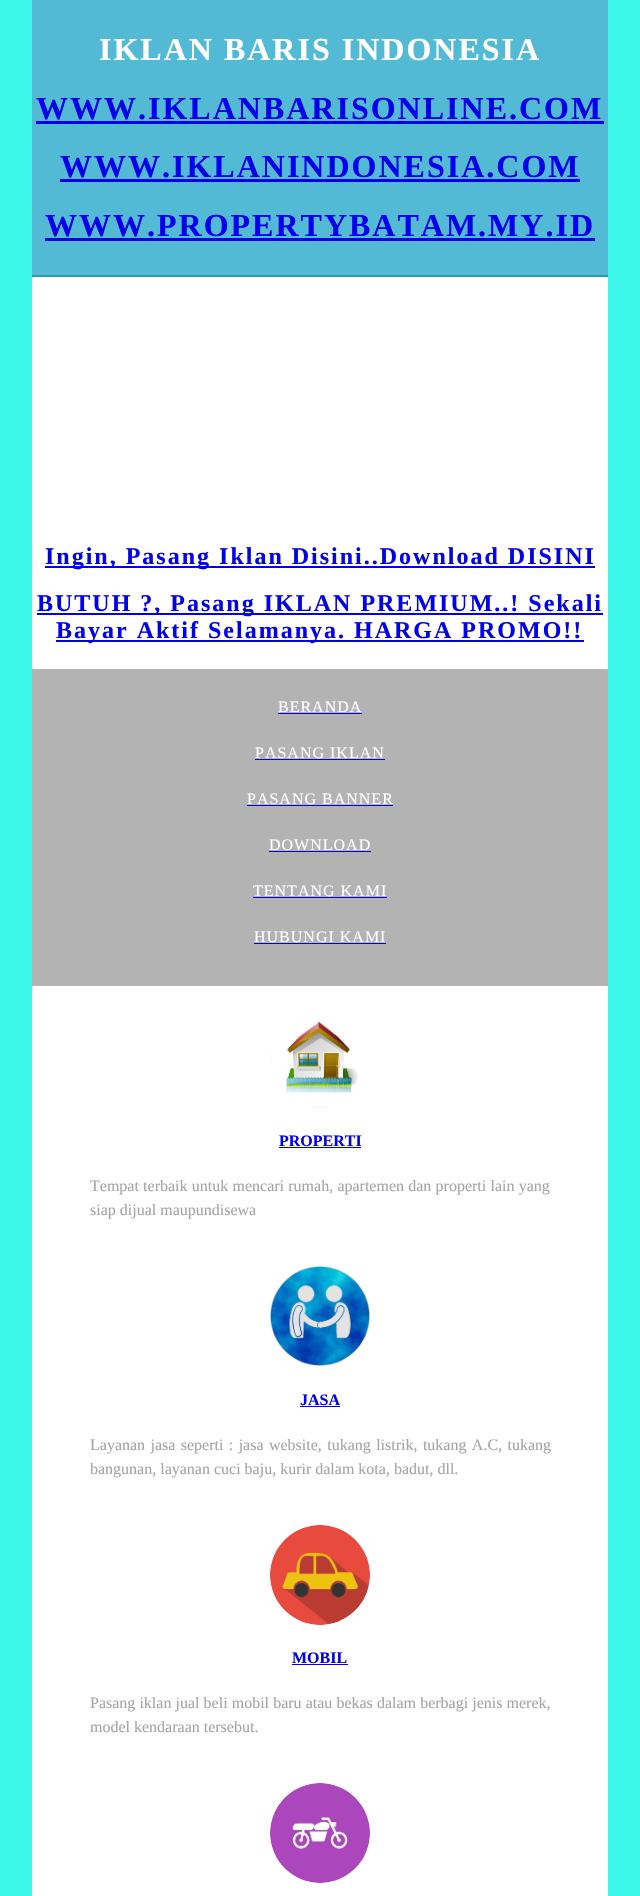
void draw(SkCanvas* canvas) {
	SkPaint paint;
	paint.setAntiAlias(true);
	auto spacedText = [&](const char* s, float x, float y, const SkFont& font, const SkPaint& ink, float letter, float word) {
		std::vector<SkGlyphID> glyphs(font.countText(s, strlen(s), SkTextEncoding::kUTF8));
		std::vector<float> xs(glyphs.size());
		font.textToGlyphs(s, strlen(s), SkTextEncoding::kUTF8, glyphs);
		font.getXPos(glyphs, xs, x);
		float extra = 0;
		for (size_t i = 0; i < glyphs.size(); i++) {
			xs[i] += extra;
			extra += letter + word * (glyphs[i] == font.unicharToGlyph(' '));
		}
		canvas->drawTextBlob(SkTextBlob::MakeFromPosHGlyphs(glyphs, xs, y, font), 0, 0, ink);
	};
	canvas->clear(0xff3ef7eb);
	paint.setColor(0xffffffff);
	canvas->drawRect(SkRect::MakeXYWH(32, 277, 576, 1619), paint);
	paint.setColor(0xff52bad5);
	canvas->drawRect(SkRect::MakeXYWH(32, 0, 576, 275), paint);
	paint.setColor(0xff2c9ab7);
	canvas->drawRect(SkRect::MakeXYWH(32, 275, 576, 2), paint);
	SkFont f1(fontMgr->matchFamilyStyle("Liberation Serif", SkFontStyle::Bold()), 32);
	f1.setSubpixel(true);
	paint.setColor(0xffffffff);
	spacedText("IKLAN BARIS INDONESIA", 99, 60, f1, paint, 2, 0);
	paint.setColor(0xff0000ee);
	spacedText("WWW.IKLANBARISONLINE.COM", 36, 119, f1, paint, 2, 0);
	canvas->drawRect(SkRect::MakeXYWH(36, 121, 568, 3), paint);
	spacedText("WWW.IKLANINDONESIA.COM", 60, 177, f1, paint, 2, 0);
	canvas->drawRect(SkRect::MakeXYWH(60, 179, 520, 3), paint);
	spacedText("WWW.PROPERTYBATAM.MY.ID", 45, 236, f1, paint, 2, 0);
	canvas->drawRect(SkRect::MakeXYWH(45, 238, 550, 3), paint);
	canvas->drawRect(SkRect::MakeXYWH(45, 566, 550, 2), paint);
	SkFont f2(fontMgr->matchFamilyStyle("Liberation Serif", SkFontStyle::Bold()), 24);
	f2.setSubpixel(true);
	spacedText("Ingin, Pasang Iklan Disini..Download DISINI", 45, 564, f2, paint, 2, 0);
	canvas->drawRect(SkRect::MakeXYWH(37, 613, 566, 2), paint);
	spacedText("BUTUH ?, Pasang IKLAN PREMIUM..! Sekali", 37, 611, f2, paint, 2, 0);
	canvas->drawRect(SkRect::MakeXYWH(56, 640, 528, 2), paint);
	spacedText("Bayar Aktif Selamanya. HARGA PROMO!!", 56, 638, f2, paint, 2, 0);
	paint.setColor(0xffb3b3b3);
	canvas->drawRect(SkRect::MakeXYWH(32, 669, 576, 317), paint);
	SkFont f3(fontMgr->matchFamilyStyle("Liberation Serif", SkFontStyle::Normal()), 16);
	f3.setSubpixel(true);
	paint.setColor(0xffffffff);
	spacedText("BERANDA", 278, 712, f3, paint, 1, 0);
	paint.setColor(0xff0000ee);
	canvas->drawRect(SkRect::MakeXYWH(278, 713, 84, 1), paint);
	paint.setColor(0xffffffff);
	spacedText("PASANG IKLAN", 255, 758, f3, paint, 1, 0);
	paint.setColor(0xff0000ee);
	canvas->drawRect(SkRect::MakeXYWH(255, 759, 130, 1), paint);
	paint.setColor(0xffffffff);
	spacedText("PASANG BANNER", 247, 804, f3, paint, 1, 0);
	paint.setColor(0xff0000ee);
	canvas->drawRect(SkRect::MakeXYWH(247, 805, 146, 1), paint);
	paint.setColor(0xffffffff);
	spacedText("DOWNLOAD", 269, 850, f3, paint, 1, 0);
	paint.setColor(0xff0000ee);
	canvas->drawRect(SkRect::MakeXYWH(269, 851, 102, 1), paint);
	paint.setColor(0xffffffff);
	spacedText("TENTANG KAMI", 253, 896, f3, paint, 1, 0);
	paint.setColor(0xff0000ee);
	canvas->drawRect(SkRect::MakeXYWH(253, 897, 134, 1), paint);
	paint.setColor(0xffffffff);
	spacedText("HUBUNGI KAMI", 254, 942, f3, paint, 1, 0);
	paint.setColor(0xff0000ee);
	canvas->drawRect(SkRect::MakeXYWH(254, 943, 132, 1), paint);
	canvas->drawImageRect(SkImages::DeferredFromEncodedData(SkData::MakeFromFileName("img1.png")), SkRect::MakeXYWH(270, 1021, 88, 87), SkSamplingOptions());
	SkFont f4(fontMgr->matchFamilyStyle("Liberation Serif", SkFontStyle::Bold()), 16);
	f4.setSubpixel(true);
	canvas->drawString("PROPERTI", 279, 1146, f4, paint);
	canvas->drawRect(SkRect::MakeXYWH(279, 1147, 82, 1), paint);
	paint.setColor(0xffa5a5a5);
	spacedText("Tempat terbaik untuk mencari rumah, apartemen dan properti lain yang", 90, 1191, f3, paint, 0, 0.25);
	canvas->drawString("siap dijual maupundisewa", 90, 1215, f3, paint);
	canvas->drawImageRect(SkImages::DeferredFromEncodedData(SkData::MakeFromFileName("img2.png")), SkRect::MakeXYWH(270, 1266, 100, 100), SkSamplingOptions());
	paint.setColor(0xff0000ee);
	canvas->drawString("JASA", 300, 1405, f4, paint);
	canvas->drawRect(SkRect::MakeXYWH(300, 1406, 40, 1), paint);
	paint.setColor(0xffa5a5a5);
	spacedText("Layanan jasa seperti : jasa website, tukang listrik, tukang A.C, tukang", 90, 1450, f3, paint, 0, 1.4);
	canvas->drawString("bangunan, layanan cuci baju, kurir dalam kota, badut, dll.", 90, 1474, f3, paint);
	canvas->drawImageRect(SkImages::DeferredFromEncodedData(SkData::MakeFromFileName("img3.png")), SkRect::MakeXYWH(270, 1525, 100, 100), SkSamplingOptions());
	paint.setColor(0xff0000ee);
	canvas->drawString("MOBIL", 292, 1663, f4, paint);
	canvas->drawRect(SkRect::MakeXYWH(292, 1664, 56, 1), paint);
	paint.setColor(0xffa5a5a5);
	spacedText("Pasang iklan jual beli mobil baru atau bekas dalam berbagi jenis merek,", 90, 1708, f3, paint, 0, 0.1);
	canvas->drawString("model kendaraan tersebut.", 90, 1732, f3, paint);
	canvas->drawImageRect(SkImages::DeferredFromEncodedData(SkData::MakeFromFileName("img4.png")), SkRect::MakeXYWH(270, 1783, 100, 100), SkSamplingOptions());
}
